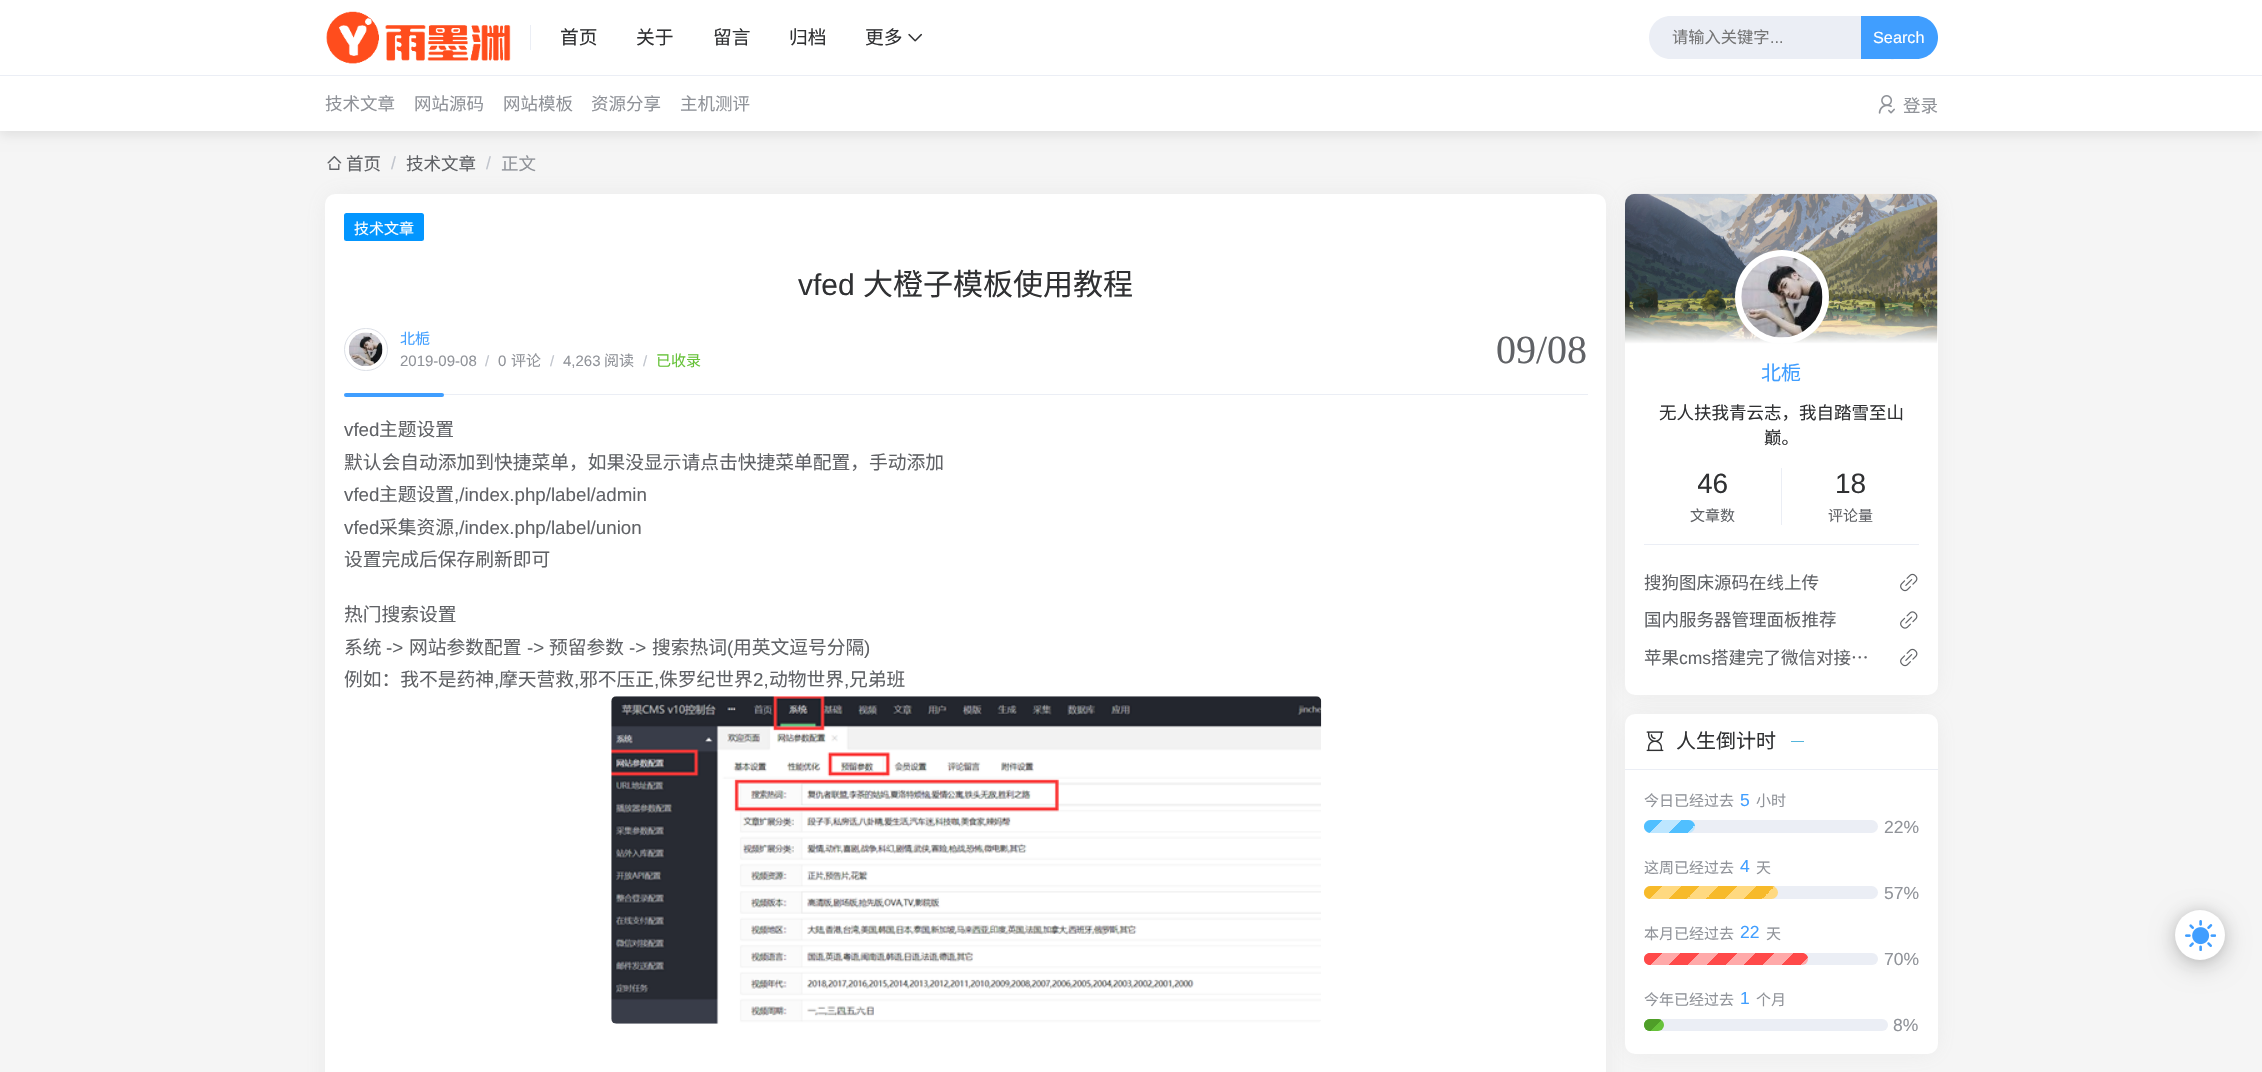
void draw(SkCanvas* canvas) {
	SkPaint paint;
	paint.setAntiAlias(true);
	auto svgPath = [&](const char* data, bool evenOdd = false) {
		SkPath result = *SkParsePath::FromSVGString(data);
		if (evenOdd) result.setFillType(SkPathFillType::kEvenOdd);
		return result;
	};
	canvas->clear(0xfff5f5f5);
	paint.setColor(0x1a000000);
	paint.setMaskFilter(SkMaskFilter::MakeBlur(kNormal_SkBlurStyle, 6));
	canvas->drawRect(SkRect::MakeXYWH(0, 3, 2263, 131), paint);
	paint.setMaskFilter(nullptr);
	paint.setColor(0xffffffff);
	canvas->drawRect(SkRect::MakeXYWH(0, 0, 2262, 131), paint);
	canvas->drawImageRect(SkImages::DeferredFromEncodedData(SkData::MakeFromFileName("img1.png")), SkRect::MakeXYWH(326, 11, 185, 53), SkSamplingOptions());
	paint.setColor(0xffebeef5);
	canvas->drawRect(SkRect::MakeXYWH(530, 25, 1, 25), paint);
	SkFont f1(fontMgr->matchFamilyStyle("Noto Sans CJK SC", SkFontStyle::Normal()), 18.75);
	f1.setSubpixel(true);
	paint.setColor(0xff303133);
	canvas->drawString("首页", 560, 44, f1, paint);
	canvas->drawString("关于", 636, 44, f1, paint);
	canvas->drawString("留言", 713, 44, f1, paint);
	canvas->drawString("归档", 789, 44, f1, paint);
	canvas->drawString("更多", 865, 44, f1, paint);
	canvas->drawImageRect(SkImages::DeferredFromEncodedData(SkData::MakeFromFileName("img2.png")), SkRect::MakeXYWH(908, 33, 14, 9), SkSamplingOptions());
	paint.setColor(0xffebeef5);
	canvas->drawPath(svgPath("M1670.5 16H1861V59H1670.5C1658.5 59 1649 49.5 1649 37.5C1649 25.5 1658.5 16 1670.5 16Z"), paint);
	SkFont f2(fontMgr->matchFamilyStyle("Noto Sans CJK SC", SkFontStyle::Normal()), 16.25);
	f2.setSubpixel(true);
	paint.setColor(0xff757575);
	canvas->drawString("请输入关键字", 1672, 43, f2, paint);
	SkFont f3(fontMgr->matchFamilyStyle("Liberation Sans", SkFontStyle::Normal()), 16.25);
	f3.setSubpixel(true);
	canvas->drawString("...", 1770, 43, f3, paint);
	paint.setColor(0xff409eff);
	canvas->drawPath(svgPath("M1861 16H1916.5C1928.5 16 1938 25.5 1938 37.5C1938 49.5 1928.5 59 1916.5 59H1861Z"), paint);
	paint.setColor(0xffffffff);
	canvas->drawString("Search", 1873, 43, f3, paint);
	canvas->drawImageRect(SkImages::DeferredFromEncodedData(SkData::MakeFromFileName("img3.png")), SkRect::MakeXYWH(1891, 59, 3, 1), SkSamplingOptions());
	paint.setColor(0xffebeef5);
	canvas->drawRect(SkRect::MakeXYWH(0, 75, 2262, 1), paint);
	SkFont f4(fontMgr->matchFamilyStyle("Noto Sans CJK SC", SkFontStyle::Normal()), 17.5);
	f4.setSubpixel(true);
	paint.setColor(0xff909399);
	canvas->drawString("技术文章", 325, 110, f4, paint);
	canvas->drawString("网站源码", 414, 110, f4, paint);
	canvas->drawString("网站模板", 503, 110, f4, paint);
	canvas->drawString("资源分享", 591, 110, f4, paint);
	canvas->drawString("主机测评", 680, 110, f4, paint);
	canvas->drawImageRect(SkImages::DeferredFromEncodedData(SkData::MakeFromFileName("img4.png")), SkRect::MakeXYWH(1878, 95, 17, 19), SkSamplingOptions());
	canvas->drawString("登录", 1903, 112, f4, paint);
	paint.setColor(0x389e9e9e);
	paint.setMaskFilter(SkMaskFilter::MakeBlur(kNormal_SkBlurStyle, 12.5));
	canvas->drawRoundRect(SkRect::MakeXYWH(331, 200, 1269, 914), 4, 4, paint);
	paint.setMaskFilter(nullptr);
	canvas->drawImageRect(SkImages::DeferredFromEncodedData(SkData::MakeFromFileName("img5.png")), SkRect::MakeXYWH(327, 156, 15, 14), SkSamplingOptions());
	paint.setColor(0xff606266);
	canvas->drawString("首页", 346, 170, f4, paint);
	SkFont f5(fontMgr->matchFamilyStyle("Liberation Sans", SkFontStyle::Normal()), 17.5);
	f5.setSubpixel(true);
	paint.setColor(0xffc0c4cc);
	canvas->drawString("/", 391, 169, f5, paint);
	paint.setColor(0xff606266);
	canvas->drawString("技术文章", 406, 170, f4, paint);
	paint.setColor(0xffc0c4cc);
	canvas->drawString("/", 486, 169, f5, paint);
	paint.setColor(0xff909399);
	canvas->drawString("正文", 501, 170, f4, paint);
	paint.setColor(0xffffffff);
	canvas->drawRoundRect(SkRect::MakeXYWH(325, 194, 1281, 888), 10, 10, paint);
	paint.setColor(0xff0396ff);
	canvas->drawRoundRect(SkRect::MakeXYWH(344, 213, 80, 28), 2.5, 2.5, paint);
	SkFont f6(fontMgr->matchFamilyStyle("Noto Sans CJK SC", SkFontStyle::Normal()), 15);
	f6.setSubpixel(true);
	paint.setColor(0xffffffff);
	canvas->drawString("技术文章", 354, 234, f6, paint);
	SkFont f7(fontMgr->matchFamilyStyle("Liberation Sans", SkFontStyle::Normal()), 30);
	f7.setSubpixel(true);
	paint.setColor(0xff303133);
	canvas->drawString("vfed", 798, 295, f7, paint);
	SkFont f8(fontMgr->matchFamilyStyle("Noto Sans CJK SC", SkFontStyle::Normal()), 30);
	f8.setSubpixel(true);
	canvas->drawString("大橙子模板使用教程", 863, 295, f8, paint);
	paint.setColor(0xffebeef5);
	canvas->drawRect(SkRect::MakeXYWH(344, 394, 1244, 1), paint);
	paint.setStroke(true);
	paint.setStrokeWidth(1);
	paint.setColor(0xffdcdfe6);
	canvas->drawRoundRect(SkRect::MakeXYWH(344.5, 328.5, 43, 42), 21, 21, paint);
	canvas->drawImageRect(SkImages::DeferredFromEncodedData(SkData::MakeFromFileName("img6.png")), SkRect::MakeXYWH(348, 332, 35, 34), SkSamplingOptions());
	paint.setStroke(false);
	paint.setColor(0xff409eff);
	canvas->drawString("北栀", 400, 344, f6, paint);
	SkFont f9(fontMgr->matchFamilyStyle("Liberation Sans", SkFontStyle::Normal()), 15);
	f9.setSubpixel(true);
	paint.setColor(0xff909399);
	canvas->drawString("2019-09-08", 400, 366, f9, paint);
	paint.setColor(0xffc0c4cc);
	canvas->drawString("/", 485, 366, f9, paint);
	paint.setColor(0xff909399);
	canvas->drawString("0", 498, 366, f9, paint);
	canvas->drawString("评论", 511, 366, f6, paint);
	paint.setColor(0xffc0c4cc);
	canvas->drawString("/", 550, 366, f9, paint);
	paint.setColor(0xff909399);
	canvas->drawString("4,263", 563, 366, f9, paint);
	canvas->drawString("阅读", 604, 366, f6, paint);
	paint.setColor(0xffc0c4cc);
	canvas->drawString("/", 643, 366, f9, paint);
	paint.setColor(0xff67c23a);
	canvas->drawString("已收录", 656, 366, f6, paint);
	SkFont f10(fontMgr->matchFamilyStyle("Liberation Serif", SkFontStyle::Normal()), 40);
	f10.setSubpixel(true);
	paint.setColor(0xff606266);
	canvas->drawString("09/08", 1496, 363, f10, paint);
	paint.setColor(0xff409eff);
	canvas->drawRoundRect(SkRect::MakeXYWH(344, 393, 100, 4), 2, 2, paint);
	SkFont f11(fontMgr->matchFamilyStyle("Liberation Sans", SkFontStyle::Normal()), 18.75);
	f11.setSubpixel(true);
	paint.setColor(0xff606266);
	canvas->drawString("vfed", 344, 436, f11, paint);
	canvas->drawString("主题设置", 379, 436, f1, paint);
	canvas->drawString("默认会自动添加到快捷菜单，如果没显示请点击快捷菜单配置，手动添加", 344, 469, f1, paint);
	canvas->drawString("vfed", 344, 501, f11, paint);
	canvas->drawString("主题设置", 379, 501, f1, paint);
	canvas->drawString(",/index.php/label/admin", 454, 501, f11, paint);
	canvas->drawString("vfed", 344, 534, f11, paint);
	canvas->drawString("采集资源", 379, 534, f1, paint);
	canvas->drawString(",/index.php/label/union", 454, 534, f11, paint);
	canvas->drawString("设置完成后保存刷新即可", 344, 566, f1, paint);
	canvas->drawString("热门搜索设置", 344, 621, f1, paint);
	canvas->drawString("系统", 344, 654, f1, paint);
	canvas->drawString("->", 386, 654, f11, paint);
	canvas->drawString("网站参数配置", 409, 654, f1, paint);
	canvas->drawString("->", 527, 654, f11, paint);
	canvas->drawString("预留参数", 549, 654, f1, paint);
	canvas->drawString("->", 629, 654, f11, paint);
	canvas->drawString("搜索热词", 652, 654, f1, paint);
	canvas->drawString("(", 727, 654, f11, paint);
	canvas->drawString("用英文逗号分隔", 733, 654, f1, paint);
	canvas->drawString(")", 864, 654, f11, paint);
	canvas->drawString("例如：我不是药神", 344, 686, f1, paint);
	canvas->drawString(",", 494, 686, f11, paint);
	canvas->drawString("摩天营救", 499, 686, f1, paint);
	canvas->drawString(",", 574, 686, f11, paint);
	canvas->drawString("邪不压正", 579, 686, f1, paint);
	canvas->drawString(",", 654, 686, f11, paint);
	canvas->drawString("侏罗纪世界", 659, 686, f1, paint);
	canvas->drawString("2,", 753, 686, f11, paint);
	canvas->drawString("动物世界", 769, 686, f1, paint);
	canvas->drawString(",", 844, 686, f11, paint);
	canvas->drawString("兄弟班", 849, 686, f1, paint);
	canvas->drawImageRect(SkImages::DeferredFromEncodedData(SkData::MakeFromFileName("img7.png")), SkRect::MakeXYWH(611, 696, 711, 328), SkSamplingOptions());
	paint.setColor(0x389e9e9e);
	paint.setMaskFilter(SkMaskFilter::MakeBlur(kNormal_SkBlurStyle, 12.5));
	canvas->drawRoundRect(SkRect::MakeXYWH(1631, 200, 300, 489), 4, 4, paint);
	paint.setMaskFilter(nullptr);
	paint.setColor(0xffffffff);
	canvas->drawRoundRect(SkRect::MakeXYWH(1625, 194, 313, 501), 10, 10, paint);
	canvas->drawImageRect(SkImages::DeferredFromEncodedData(SkData::MakeFromFileName("img8.png")), SkRect::MakeXYWH(1625, 193, 313, 151), SkSamplingOptions());
	{
		const SkColor colors[] = {0x00ffffff, 0xffffffff};
		const float stops[] = {0, 1};
		const SkPoint ends[] = {{1781, 306}, {1781, 344}};
		paint.setShader(SkGradientShader::MakeLinear(ends, colors, stops, 2, SkTileMode::kClamp));
		paint.setAlpha(255);
	}
	canvas->drawRect(SkRect::MakeXYWH(1625, 307, 313, 37), paint);
	paint.setShader(nullptr);
	paint.setColor(0xffffffff);
	canvas->drawCircle(1782, 297, 47, paint);
	canvas->drawImageRect(SkImages::DeferredFromEncodedData(SkData::MakeFromFileName("img9.png")), SkRect::MakeXYWH(1741, 256, 82, 82), SkSamplingOptions());
	SkFont f12(fontMgr->matchFamilyStyle("Noto Sans CJK SC", SkFontStyle::Normal()), 20);
	f12.setSubpixel(true);
	paint.setColor(0xff409eff);
	canvas->drawString("北栀", 1761, 380, f12, paint);
	paint.setColor(0xff303133);
	canvas->drawString("无人扶我青云志，我自踏雪至山", 1659, 419, f4, paint);
	canvas->drawString("巅。", 1764, 444, f4, paint);
	paint.setColor(0xffebeef5);
	canvas->drawRect(SkRect::MakeXYWH(1644, 544, 275, 1), paint);
	canvas->drawRect(SkRect::MakeXYWH(1781, 468, 1, 57), paint);
	canvas->save();
	canvas->clipRect(SkRect::MakeXYWH(1698, 468, 30, 32));
	SkFont f13(fontMgr->matchFamilyStyle("Liberation Sans", SkFontStyle::Normal()), 28);
	f13.setSubpixel(true);
	paint.setColor(0xff303133);
	canvas->drawString("46", 1697, 493, f13, paint);
	canvas->restore();
	paint.setColor(0xff606266);
	canvas->drawString("文章数", 1690, 521, f6, paint);
	paint.setColor(0xff303133);
	canvas->drawString("18", 1835, 493, f13, paint);
	paint.setColor(0xff606266);
	canvas->drawString("评论量", 1828, 521, f6, paint);
	canvas->drawString("搜狗图床源码在线上传", 1644, 589, f4, paint);
	canvas->drawImageRect(SkImages::DeferredFromEncodedData(SkData::MakeFromFileName("img10.png")), SkRect::MakeXYWH(1900, 573, 18, 19), SkSamplingOptions());
	canvas->drawString("国内服务器管理面板推荐", 1644, 626, f4, paint);
	canvas->drawImageRect(SkImages::DeferredFromEncodedData(SkData::MakeFromFileName("img11.png")), SkRect::MakeXYWH(1900, 611, 18, 18), SkSamplingOptions());
	canvas->drawString("苹果", 1644, 664, f4, paint);
	canvas->drawString("cms", 1679, 664, f5, paint);
	canvas->drawString("搭建完了微信对接…", 1711, 664, f4, paint);
	canvas->drawImageRect(SkImages::DeferredFromEncodedData(SkData::MakeFromFileName("img10.png")), SkRect::MakeXYWH(1900, 648, 18, 19), SkSamplingOptions());
	paint.setColor(0x389e9e9e);
	paint.setMaskFilter(SkMaskFilter::MakeBlur(kNormal_SkBlurStyle, 12.5));
	canvas->drawRoundRect(SkRect::MakeXYWH(1631, 720, 300, 328), 4, 4, paint);
	paint.setMaskFilter(nullptr);
	paint.setColor(0xffffffff);
	canvas->drawRoundRect(SkRect::MakeXYWH(1625, 714, 313, 340), 10, 10, paint);
	paint.setColor(0xffebeef5);
	canvas->drawRect(SkRect::MakeXYWH(1625, 769, 313, 1), paint);
	canvas->drawImageRect(SkImages::DeferredFromEncodedData(SkData::MakeFromFileName("img12.png")), SkRect::MakeXYWH(1646, 731, 18, 21), SkSamplingOptions());
	paint.setColor(0xff303133);
	canvas->drawString("人生倒计时", 1676, 748, f12, paint);
	paint.setColor(0xff54b5db);
	canvas->drawRect(SkRect::MakeXYWH(1791, 741, 13, 1), paint);
	paint.setColor(0xff909399);
	canvas->drawString("今日已经过去", 1644, 806, f6, paint);
	paint.setColor(0xff409eff);
	canvas->drawString("5", 1740, 806, f5, paint);
	paint.setColor(0xff909399);
	canvas->drawString("小时", 1756, 806, f6, paint);
	paint.setColor(0xffebeef5);
	canvas->drawRoundRect(SkRect::MakeXYWH(1644, 820, 234, 13), 6.5, 6.5, paint);
	paint.setColor(0xffbde6ff);
	canvas->drawRoundRect(SkRect::MakeXYWH(1644, 820, 51, 13), 6.5, 6.5, paint);
	{
		const SkColor colors[] = {0xff50bfff, 0x0050bfff, 0x0050bfff, 0xff50bfff, 0xff50bfff, 0x0050bfff, 0x00000000};
		const float stops[] = {0.25, 0.25, 0.5, 0.5, 0.75, 0.75, 1};
		const SkPoint ends[] = {{1644, 820}, {1681, 858}};
		paint.setShader(SkGradientShader::MakeLinear(ends, colors, stops, 7, SkTileMode::kClamp));
		paint.setAlpha(255);
	}
	canvas->drawPath(svgPath("M1650.5 820H1681V833H1650.5C1647 833 1644 830 1644 826.5C1644 823 1647 820 1650.5 820Z"), paint);
	{
		const SkColor colors[] = {0xff50bfff, 0x0050bfff, 0x0050bfff, 0xff50bfff, 0xff50bfff, 0x0050bfff, 0x00000000};
		const float stops[] = {0.25, 0.25, 0.5, 0.5, 0.75, 0.75, 1};
		const SkPoint ends[] = {{1681, 820}, {1719, 858}};
		paint.setShader(SkGradientShader::MakeLinear(ends, colors, stops, 7, SkTileMode::kClamp));
		paint.setAlpha(255);
	}
	canvas->drawPath(svgPath("M1681 820H1688.5C1692 820 1695 823 1695 826.5C1695 830 1692 833 1688.5 833H1681Z"), paint);
	paint.setShader(nullptr);
	paint.setColor(0xff909399);
	canvas->drawString("22%", 1884, 833, f5, paint);
	canvas->drawString("这周已经过去", 1644, 873, f6, paint);
	paint.setColor(0xff409eff);
	canvas->drawString("4", 1740, 872, f5, paint);
	paint.setColor(0xff909399);
	canvas->drawString("天", 1756, 873, f6, paint);
	paint.setColor(0xffebeef5);
	canvas->drawRoundRect(SkRect::MakeXYWH(1644, 886, 234, 13), 6.5, 6.5, paint);
	paint.setColor(0xffffd980);
	canvas->drawRoundRect(SkRect::MakeXYWH(1644, 886, 134, 13), 6.5, 6.5, paint);
	{
		const SkColor colors[] = {0xfff7ba2a, 0x00f7ba2a, 0x00f7ba2a, 0xfff7ba2a, 0xfff7ba2a, 0x00f7ba2a, 0x00000000};
		const float stops[] = {0.25, 0.25, 0.5, 0.5, 0.75, 0.75, 1};
		const SkPoint ends[] = {{1644, 886}, {1681, 924}};
		paint.setShader(SkGradientShader::MakeLinear(ends, colors, stops, 7, SkTileMode::kClamp));
		paint.setAlpha(255);
	}
	canvas->drawPath(svgPath("M1650.5 886H1681V899H1650.5C1647 899 1644 896 1644 892.5C1644 889 1647 886 1650.5 886Z"), paint);
	{
		const SkColor colors[] = {0xfff7ba2a, 0xffffd980, 0xffffd980, 0xfff7ba2a, 0xfff7ba2a, 0xffffd980, 0xffffd980};
		const float stops[] = {0.25, 0.25, 0.5, 0.5, 0.75, 0.75, 1};
		const SkPoint ends[] = {{1681, 886}, {1719, 924}};
		paint.setShader(SkGradientShader::MakeLinear(ends, colors, stops, 7, SkTileMode::kClamp));
		paint.setAlpha(255);
	}
	canvas->drawRect(SkRect::MakeXYWH(1681, 886, 38, 13), paint);
	{
		const SkColor colors[] = {0xfff7ba2a, 0xffffd980, 0xffffd980, 0xfff7ba2a, 0xfff7ba2a, 0xffffd980, 0xffffd980};
		const float stops[] = {0.25, 0.25, 0.5, 0.5, 0.75, 0.75, 1};
		const SkPoint ends[] = {{1719, 886}, {1756, 924}};
		paint.setShader(SkGradientShader::MakeLinear(ends, colors, stops, 7, SkTileMode::kClamp));
		paint.setAlpha(255);
	}
	canvas->drawRect(SkRect::MakeXYWH(1719, 886, 37, 13), paint);
	{
		const SkColor colors[] = {0xfff7ba2a, 0x00f7ba2a, 0x00f7ba2a, 0xfff7ba2a, 0xfff7ba2a, 0x00f7ba2a, 0x00000000};
		const float stops[] = {0.25, 0.25, 0.5, 0.5, 0.75, 0.75, 1};
		const SkPoint ends[] = {{1756, 886}, {1794, 924}};
		paint.setShader(SkGradientShader::MakeLinear(ends, colors, stops, 7, SkTileMode::kClamp));
		paint.setAlpha(255);
	}
	canvas->drawPath(svgPath("M1756 886H1771.5C1775 886 1778 889 1778 892.5C1778 896 1775 899 1771.5 899H1756Z"), paint);
	paint.setShader(nullptr);
	paint.setColor(0xff909399);
	canvas->drawString("57%", 1884, 899, f5, paint);
	canvas->drawString("本月已经过去", 1644, 939, f6, paint);
	paint.setColor(0xff409eff);
	canvas->drawString("22", 1740, 938, f5, paint);
	paint.setColor(0xff909399);
	canvas->drawString("天", 1766, 939, f6, paint);
	paint.setColor(0xffebeef5);
	canvas->drawRoundRect(SkRect::MakeXYWH(1644, 953, 234, 12), 6, 6, paint);
	paint.setColor(0xffffa9a9);
	canvas->drawRoundRect(SkRect::MakeXYWH(1644, 953, 164, 12), 6, 6, paint);
	{
		const SkColor colors[] = {0xffff4949, 0x00ff4949, 0x00ff4949, 0xffff4949, 0xffff4949, 0x00ff4949, 0x00000000};
		const float stops[] = {0.25, 0.25, 0.5, 0.5, 0.75, 0.75, 1};
		const SkPoint ends[] = {{1644, 953}, {1681, 990}};
		paint.setShader(SkGradientShader::MakeLinear(ends, colors, stops, 7, SkTileMode::kClamp));
		paint.setAlpha(255);
	}
	canvas->drawPath(svgPath("M1650 953H1681V965H1650C1646.5 965 1644 962.5 1644 959C1644 955.5 1646.5 953 1650 953Z"), paint);
	{
		const SkColor colors[] = {0xffff4949, 0xffffa9a9, 0xffffa9a9, 0xffff4949, 0xffff4949, 0xffffa9a9, 0xffffa9a9};
		const float stops[] = {0.25, 0.25, 0.5, 0.5, 0.75, 0.75, 1};
		const SkPoint ends[] = {{1681, 953}, {1719, 990}};
		paint.setShader(SkGradientShader::MakeLinear(ends, colors, stops, 7, SkTileMode::kClamp));
		paint.setAlpha(255);
	}
	canvas->drawRect(SkRect::MakeXYWH(1681, 953, 38, 12), paint);
	{
		const SkColor colors[] = {0xffff4949, 0xffffa9a9, 0xffffa9a9, 0xffff4949, 0xffff4949, 0xffffa9a9, 0xffffa9a9};
		const float stops[] = {0.25, 0.25, 0.5, 0.5, 0.75, 0.75, 1};
		const SkPoint ends[] = {{1719, 953}, {1756, 990}};
		paint.setShader(SkGradientShader::MakeLinear(ends, colors, stops, 7, SkTileMode::kClamp));
		paint.setAlpha(255);
	}
	canvas->drawRect(SkRect::MakeXYWH(1719, 953, 37, 12), paint);
	{
		const SkColor colors[] = {0xffff4949, 0xffffa9a9, 0xffffa9a9, 0xffff4949, 0xffff4949, 0xffffa9a9, 0xffffa9a9};
		const float stops[] = {0.25, 0.25, 0.5, 0.5, 0.75, 0.75, 1};
		const SkPoint ends[] = {{1756, 953}, {1794, 990}};
		paint.setShader(SkGradientShader::MakeLinear(ends, colors, stops, 7, SkTileMode::kClamp));
		paint.setAlpha(255);
	}
	canvas->drawRect(SkRect::MakeXYWH(1756, 953, 38, 12), paint);
	{
		const SkColor colors[] = {0xffff4949, 0x00ff4949, 0x00ff4949, 0xffff4949, 0xffff4949, 0x00ff4949, 0x00000000};
		const float stops[] = {0.25, 0.25, 0.5, 0.5, 0.75, 0.75, 1};
		const SkPoint ends[] = {{1794, 953}, {1831, 990}};
		paint.setShader(SkGradientShader::MakeLinear(ends, colors, stops, 7, SkTileMode::kClamp));
		paint.setAlpha(255);
	}
	canvas->drawPath(svgPath("M1794 953H1802C1805.5 953 1808 955.5 1808 959C1808 962.5 1805.5 965 1802 965H1794Z"), paint);
	paint.setShader(nullptr);
	paint.setColor(0xff909399);
	canvas->drawString("70%", 1884, 965, f5, paint);
	canvas->drawString("今年已经过去", 1644, 1005, f6, paint);
	paint.setColor(0xff409eff);
	canvas->drawString("1", 1740, 1004, f5, paint);
	paint.setColor(0xff909399);
	canvas->drawString("个月", 1756, 1005, f6, paint);
	paint.setColor(0xffebeef5);
	canvas->drawRoundRect(SkRect::MakeXYWH(1644, 1019, 244, 12), 6, 6, paint);
	paint.setColor(0xff67c23a);
	canvas->drawRoundRect(SkRect::MakeXYWH(1644, 1019, 20, 12), 6, 6, paint);
	{
		const SkColor colors[] = {0xff4f9e28, 0x004f9e28, 0x004f9e28, 0xff4f9e28, 0xff4f9e28, 0x004f9e28, 0x00000000};
		const float stops[] = {0.25, 0.25, 0.5, 0.5, 0.75, 0.75, 1};
		const SkPoint ends[] = {{1644, 1019}, {1681, 1056}};
		paint.setShader(SkGradientShader::MakeLinear(ends, colors, stops, 7, SkTileMode::kClamp));
		paint.setAlpha(255);
	}
	canvas->drawRoundRect(SkRect::MakeXYWH(1644, 1019, 20, 12), 6, 6, paint);
	paint.setShader(nullptr);
	paint.setColor(0xff909399);
	canvas->drawString("8%", 1893, 1031, f5, paint);
	paint.setColor(0x33000000);
	paint.setMaskFilter(SkMaskFilter::MakeBlur(kNormal_SkBlurStyle, 12.5));
	canvas->drawRoundRect(SkRect::MakeXYWH(2175, 916, 50, 50), 25, 25, paint);
	paint.setMaskFilter(nullptr);
	paint.setColor(0x1a000000);
	paint.setMaskFilter(SkMaskFilter::MakeBlur(kNormal_SkBlurStyle, 6));
	canvas->drawRoundRect(SkRect::MakeXYWH(2175, 910, 50, 50), 25, 25, paint);
	paint.setMaskFilter(nullptr);
	paint.setColor(0xffffffff);
	canvas->drawCircle(2200, 935, 25, paint);
	canvas->drawImageRect(SkImages::DeferredFromEncodedData(SkData::MakeFromFileName("img13.png")), SkRect::MakeXYWH(2185, 920, 31, 31), SkSamplingOptions());
}
